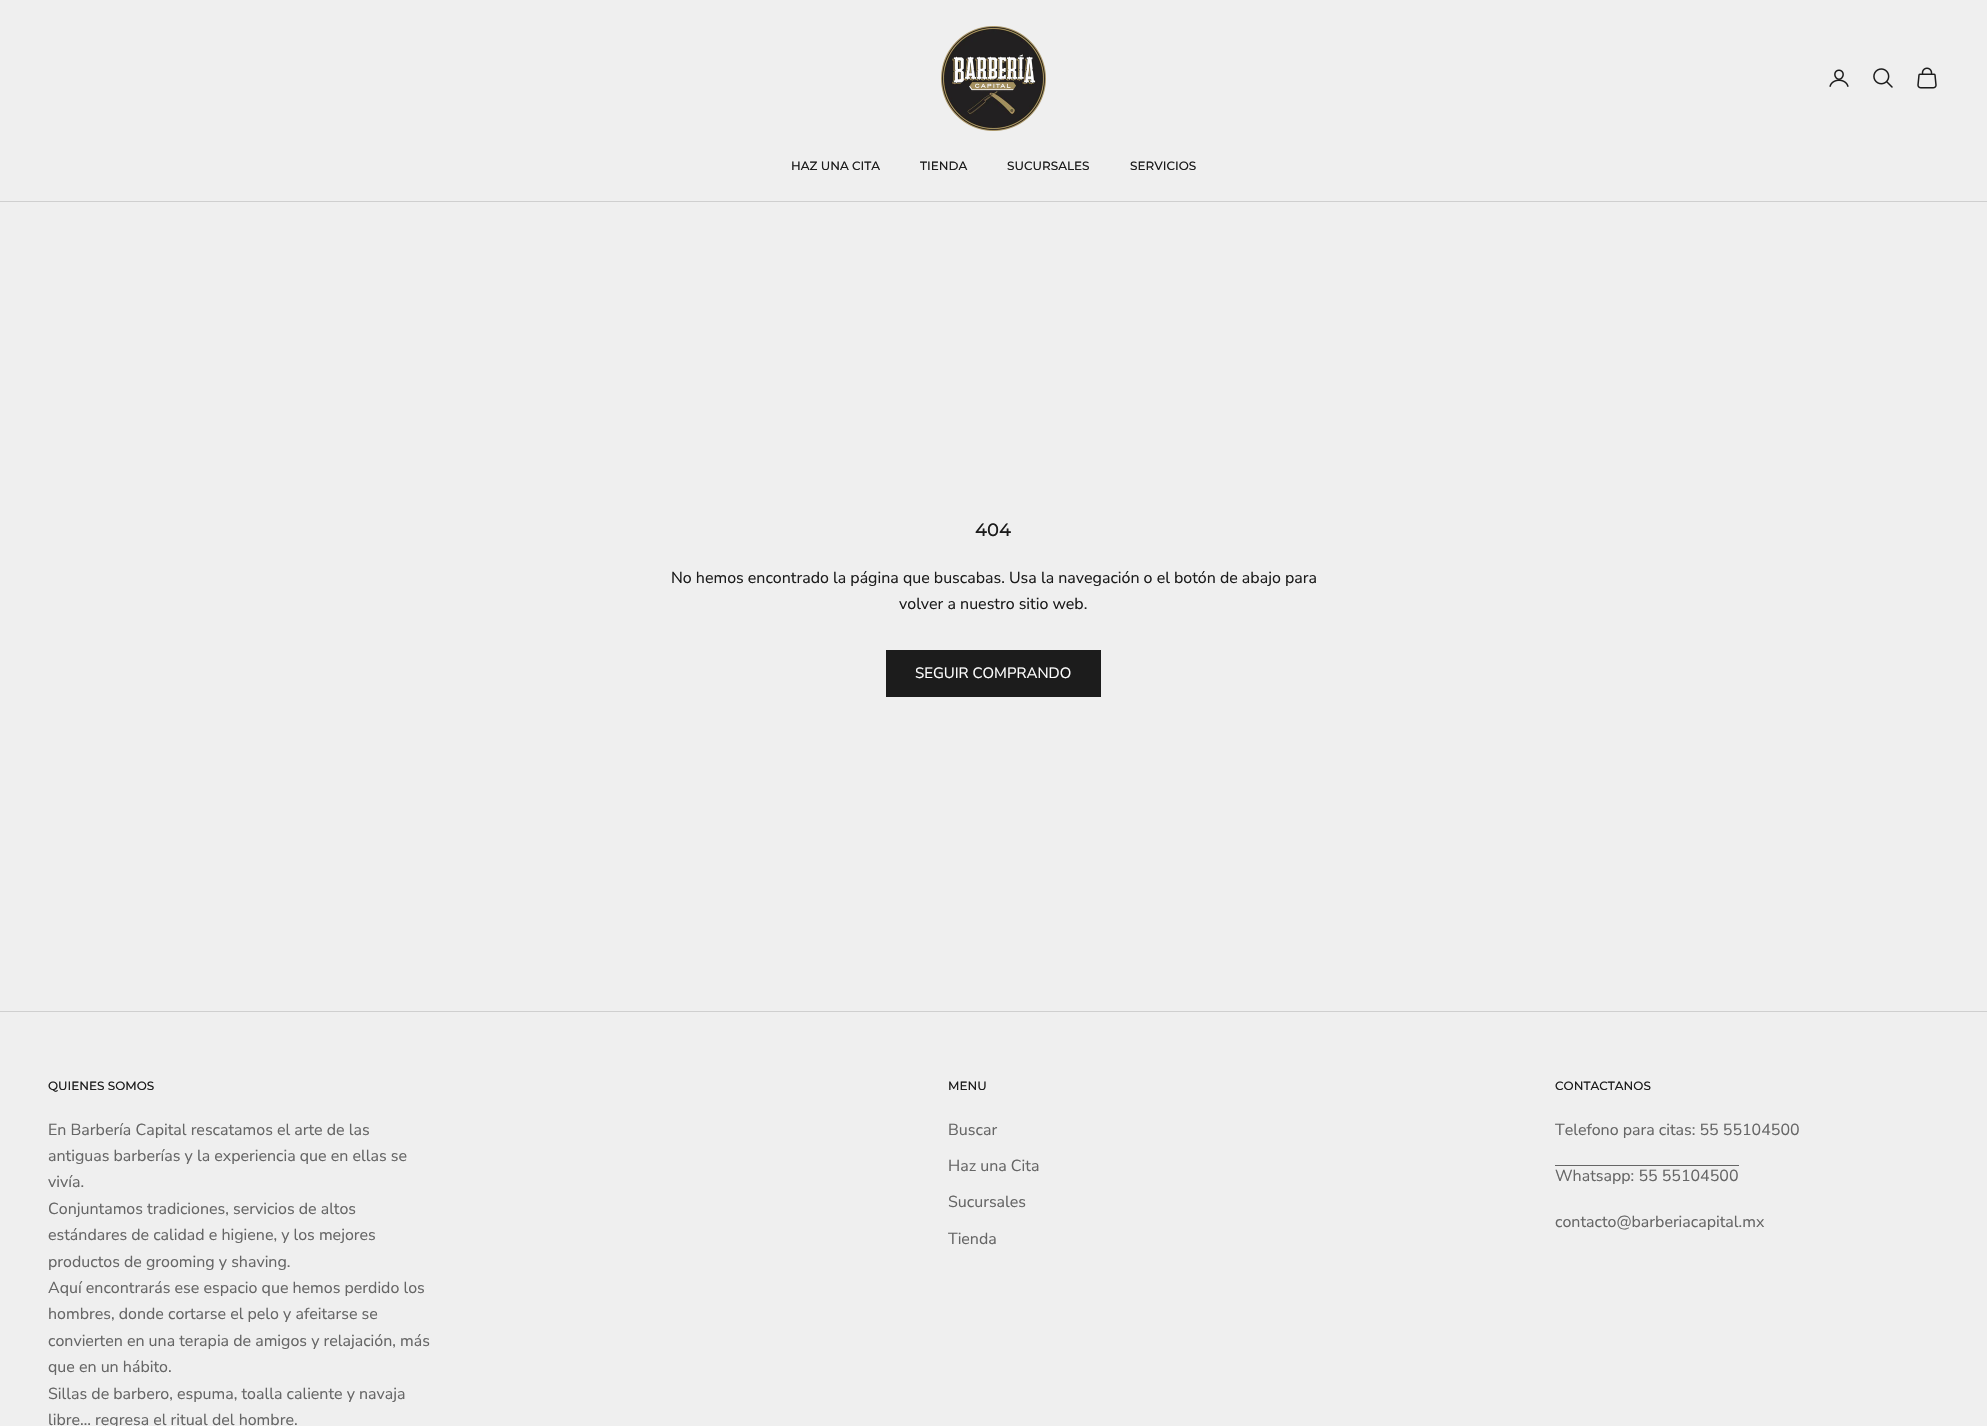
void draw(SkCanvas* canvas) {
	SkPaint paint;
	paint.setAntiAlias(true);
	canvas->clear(0xffefefef);
	paint.setColor(0xffcfcfcf);
	canvas->drawRect(SkRect::MakeXYWH(0, 201, 1987, 1), paint);
	canvas->drawImageRect(SkImages::DeferredFromEncodedData(SkData::MakeFromFileName("img1.png")), SkRect::MakeXYWH(941, 26, 105, 105), SkSamplingOptions());
	canvas->drawImageRect(SkImages::DeferredFromEncodedData(SkData::MakeFromFileName("img2.png")), SkRect::MakeXYWH(1829, 69, 20, 18), SkSamplingOptions());
	canvas->drawImageRect(SkImages::DeferredFromEncodedData(SkData::MakeFromFileName("img3.png")), SkRect::MakeXYWH(1873, 68, 20, 20), SkSamplingOptions());
	canvas->drawImageRect(SkImages::DeferredFromEncodedData(SkData::MakeFromFileName("img4.png")), SkRect::MakeXYWH(1917, 67, 20, 22), SkSamplingOptions());
	SkFont f1(fontMgr->matchFamilyStyle("Montserrat", SkFontStyle(500, SkFontStyle::kNormal_Width, SkFontStyle::kUpright_Slant)), 12);
	f1.setSubpixel(true);
	paint.setColor(0xff1c1c1c);
	canvas->drawString("HAZ UNA CITA", 791, 170, f1, paint);
	canvas->drawString("TIENDA", 920, 170, f1, paint);
	canvas->drawString("SUCURSALES", 1007, 170, f1, paint);
	canvas->drawString("SERVICIOS", 1130, 170, f1, paint);
	SkFont f2(fontMgr->matchFamilyStyle("Montserrat", SkFontStyle(500, SkFontStyle::kNormal_Width, SkFontStyle::kUpright_Slant)), 18);
	f2.setSubpixel(true);
	canvas->drawString("404", 975, 536, f2, paint);
	SkFont f3(fontMgr->matchFamilyStyle("Nunito Sans", SkFontStyle::Normal()), 16);
	f3.setSubpixel(true);
	canvas->drawString("No hemos encontrado la página que buscabas. Usa la navegación o el botón de abajo para", 671, 583, f3, paint);
	canvas->drawString("volver a nuestro sitio web.", 899, 609, f3, paint);
	canvas->drawRect(SkRect::MakeXYWH(886.5, 650.5, 214, 46), paint);
	paint.setStroke(true);
	paint.setStrokeWidth(1);
	canvas->drawRect(SkRect::MakeXYWH(886.5, 650.5, 214, 46), paint);
	SkFont f4(fontMgr->matchFamilyStyle("Nunito Sans", SkFontStyle::Normal()), 15);
	f4.setSubpixel(true);
	paint.setStroke(false);
	paint.setColor(0xffffffff);
	canvas->drawString("SEGUIR COMPRANDO", 915, 678, f4, paint);
	paint.setColor(0xffcfcfcf);
	canvas->drawRect(SkRect::MakeXYWH(0, 1011, 1987, 1), paint);
	paint.setColor(0xff1c1c1c);
	canvas->drawString("QUIENES SOMOS", 48, 1090, f1, paint);
	paint.setColor(0xff666666);
	canvas->drawString("En Barbería Capital rescatamos el arte de las", 48, 1135, f3, paint);
	canvas->drawString("antiguas barberías y la experiencia que en ellas se", 48, 1161, f3, paint);
	canvas->drawString("vivía.", 48, 1187, f3, paint);
	canvas->drawString("Conjuntamos tradiciones, servicios de altos", 48, 1214, f3, paint);
	canvas->drawString("estándares de calidad e higiene, y los mejores", 48, 1240, f3, paint);
	canvas->drawString("productos de grooming y shaving.", 48, 1267, f3, paint);
	canvas->drawString("Aquí encontrarás ese espacio que hemos perdido los", 48, 1293, f3, paint);
	canvas->drawString("hombres, donde cortarse el pelo y afeitarse se", 48, 1319, f3, paint);
	canvas->drawString("convierten en una terapia de amigos y relajación, más", 48, 1346, f3, paint);
	canvas->drawString("que en un hábito.", 48, 1372, f3, paint);
	canvas->drawString("Sillas de barbero, espuma, toalla caliente y navaja", 48, 1399, f3, paint);
	canvas->drawString("libre… regresa el ritual del hombre.", 48, 1425, f3, paint);
	paint.setColor(0xff1c1c1c);
	canvas->drawString("MENU", 948, 1090, f1, paint);
	paint.setColor(0xff666666);
	canvas->drawString("Buscar", 948, 1135, f3, paint);
	canvas->drawString("Haz una Cita", 948, 1171, f3, paint);
	canvas->drawString("Sucursales", 948, 1207, f3, paint);
	canvas->drawString("Tienda", 948, 1244, f3, paint);
	paint.setColor(0xff1c1c1c);
	canvas->drawString("CONTACTANOS", 1555, 1090, f1, paint);
	paint.setColor(0xff666666);
	canvas->drawString("Telefono para citas: 55 55104500", 1555, 1135, f3, paint);
	canvas->drawString("Whatsapp: 55 55104500", 1555, 1181, f3, paint);
	canvas->drawRect(SkRect::MakeXYWH(1555, 1165, 184, 1), paint);
	canvas->drawString("contacto@barberiacapital.mx", 1555, 1227, f3, paint);
}
